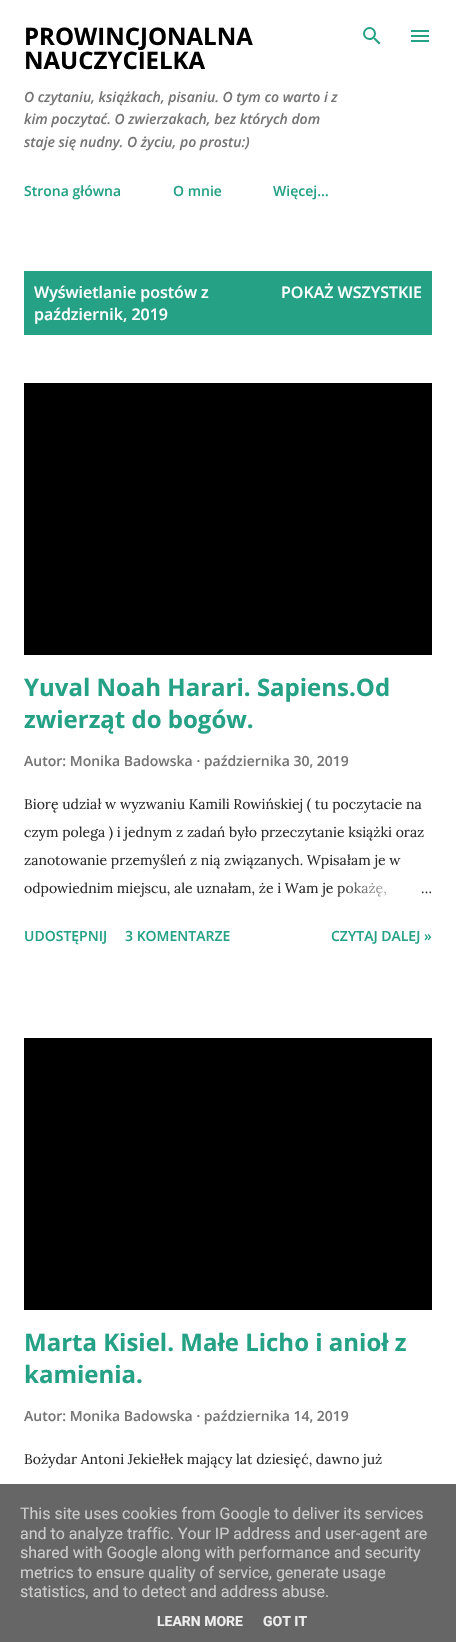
void draw(SkCanvas* canvas) {
	SkPaint paint;
	paint.setAntiAlias(true);
	canvas->clear(0xffffffff);
	SkFont f1(fontMgr->matchFamilyStyle("Open Sans", SkFontStyle::Bold()), 24);
	f1.setSubpixel(true);
	paint.setColor(0xff000000);
	canvas->drawString("PROWINCJONALNA", 24, 45, f1, paint);
	canvas->drawString("NAUCZYCIELKA", 24, 69, f1, paint);
	SkFont f2(fontMgr->matchFamilyStyle("Open Sans", SkFontStyle(600, SkFontStyle::kNormal_Width, SkFontStyle::kItalic_Slant)), 14);
	f2.setSubpixel(true);
	paint.setColor(0xff757575);
	canvas->drawString("O czytaniu, książkach, pisaniu. O tym co warto i z", 24, 102, f2, paint);
	canvas->drawString("kim poczytać. O zwierzakach, bez których dom", 24, 124, f2, paint);
	canvas->drawString("staje się nudny. O życiu, po prostu:)", 24, 147, f2, paint);
	canvas->drawImageRect(SkImages::DeferredFromEncodedData(SkData::MakeFromFileName("img1.png")), SkRect::MakeXYWH(363, 27, 18, 18), SkSamplingOptions());
	canvas->drawImageRect(SkImages::DeferredFromEncodedData(SkData::MakeFromFileName("img2.png")), SkRect::MakeXYWH(411, 30, 18, 12), SkSamplingOptions());
	SkFont f3(fontMgr->matchFamilyStyle("Open Sans", SkFontStyle(600, SkFontStyle::kNormal_Width, SkFontStyle::kUpright_Slant)), 14);
	f3.setSubpixel(true);
	paint.setColor(0xff25a186);
	canvas->drawString("Strona główna", 24, 196, f3, paint);
	canvas->drawString("O mnie", 173, 196, f3, paint);
	canvas->drawString("Więcej…", 273, 196, f3, paint);
	canvas->drawRect(SkRect::MakeXYWH(24, 271, 408, 64), paint);
	SkFont f4(fontMgr->matchFamilyStyle("Open Sans", SkFontStyle(600, SkFontStyle::kNormal_Width, SkFontStyle::kUpright_Slant)), 16);
	f4.setSubpixel(true);
	paint.setColor(0xffffffff);
	canvas->drawString("Wyświetlanie postów z", 34, 298, f4, paint);
	canvas->drawString("październik, 2019", 34, 320, f4, paint);
	canvas->drawString("POKAŻ WSZYSTKIE", 281, 298, f4, paint);
	paint.setColor(0xff000000);
	canvas->drawRect(SkRect::MakeXYWH(24, 383, 408, 272), paint);
	paint.setColor(0xff25a186);
	canvas->drawString("Yuval Noah Harari. Sapiens.Od", 24, 696, f1, paint);
	canvas->drawString("zwierząt do bogów.", 24, 728, f1, paint);
	paint.setColor(0xff757575);
	canvas->drawString("Autor: Monika Badowska · października 30, 2019", 24, 766, f3, paint);
	SkFont f5(fontMgr->matchFamilyStyle("Lora", SkFontStyle::Normal()), 14);
	f5.setSubpixel(true);
	paint.setColor(0xff292929);
	canvas->drawString("Biorę udział w wyzwaniu Kamili Rowińskiej ( tu poczytacie na", 24, 809, f5, paint);
	canvas->drawString("czym polega ) i jednym z zadań było przeczytanie książki oraz", 24, 837, f5, paint);
	canvas->drawString("zanotowanie przemyśleń z nią związanych. Wpisałam je w", 24, 865, f5, paint);
	canvas->drawString("odpowiednim miejscu, ale uznałam, że i Wam je pokażę,", 24, 893, f5, paint);
	{
		const SkColor colors[] = {0xffffffff, 0xffffffff, 0x00ffffff};
		const float stops[] = {0, 0.2, 1};
		const SkPoint ends[] = {{432, 888}, {336, 888}};
		paint.setShader(SkGradientShader::MakeLinear(ends, colors, stops, 3, SkTileMode::kClamp));
		paint.setAlpha(255);
	}
	canvas->drawRect(SkRect::MakeXYWH(338, 882, 48, 15), paint);
	paint.setShader(nullptr);
	paint.setColor(0xff292929);
	canvas->drawString("…", 421, 893, f5, paint);
	paint.setColor(0xff25a186);
	canvas->drawString("UDOSTĘPNIJ", 24, 941, f3, paint);
	canvas->drawString("3 KOMENTARZE", 125, 941, f3, paint);
	canvas->drawString("CZYTAJ DALEJ »", 331, 941, f3, paint);
	paint.setColor(0xff000000);
	canvas->drawRect(SkRect::MakeXYWH(24, 1038, 408, 272), paint);
	paint.setColor(0xff25a186);
	canvas->drawString("Marta Kisiel. Małe Licho i anioł z", 24, 1351, f1, paint);
	canvas->drawString("kamienia.", 24, 1383, f1, paint);
	paint.setColor(0xff757575);
	canvas->drawString("Autor: Monika Badowska · października 14, 2019", 24, 1421, f3, paint);
	paint.setColor(0xff292929);
	canvas->drawString("Bożydar Antoni Jekiełłek mający lat dziesięć, dawno już", 24, 1464, f5, paint);
	paint.setColor(0xff666666);
	canvas->drawRect(SkRect::MakeXYWH(0, 1484, 456, 158), paint);
	SkFont f6(fontMgr->matchFamilyStyle("Roboto", SkFontStyle::Normal()), 16);
	f6.setSubpixel(true);
	paint.setColor(0xffcccccc);
	canvas->drawString("This site uses cookies from Google to deliver its services", 20, 1519, f6, paint);
	canvas->drawString("and to analyze traffic. Your IP address and user-agent are", 20, 1539, f6, paint);
	canvas->drawString("shared with Google along with performance and security", 20, 1558, f6, paint);
	canvas->drawString("metrics to ensure quality of service, generate usage", 20, 1578, f6, paint);
	canvas->drawString("statistics, and to detect and address abuse.", 20, 1597, f6, paint);
	SkFont f7(fontMgr->matchFamilyStyle("Roboto", SkFontStyle::Bold()), 14);
	f7.setSubpixel(true);
	paint.setColor(0xffeeeeee);
	canvas->drawString("LEARN MORE", 157, 1626, f7, paint);
	canvas->drawString("GOT IT", 263, 1626, f7, paint);
}
